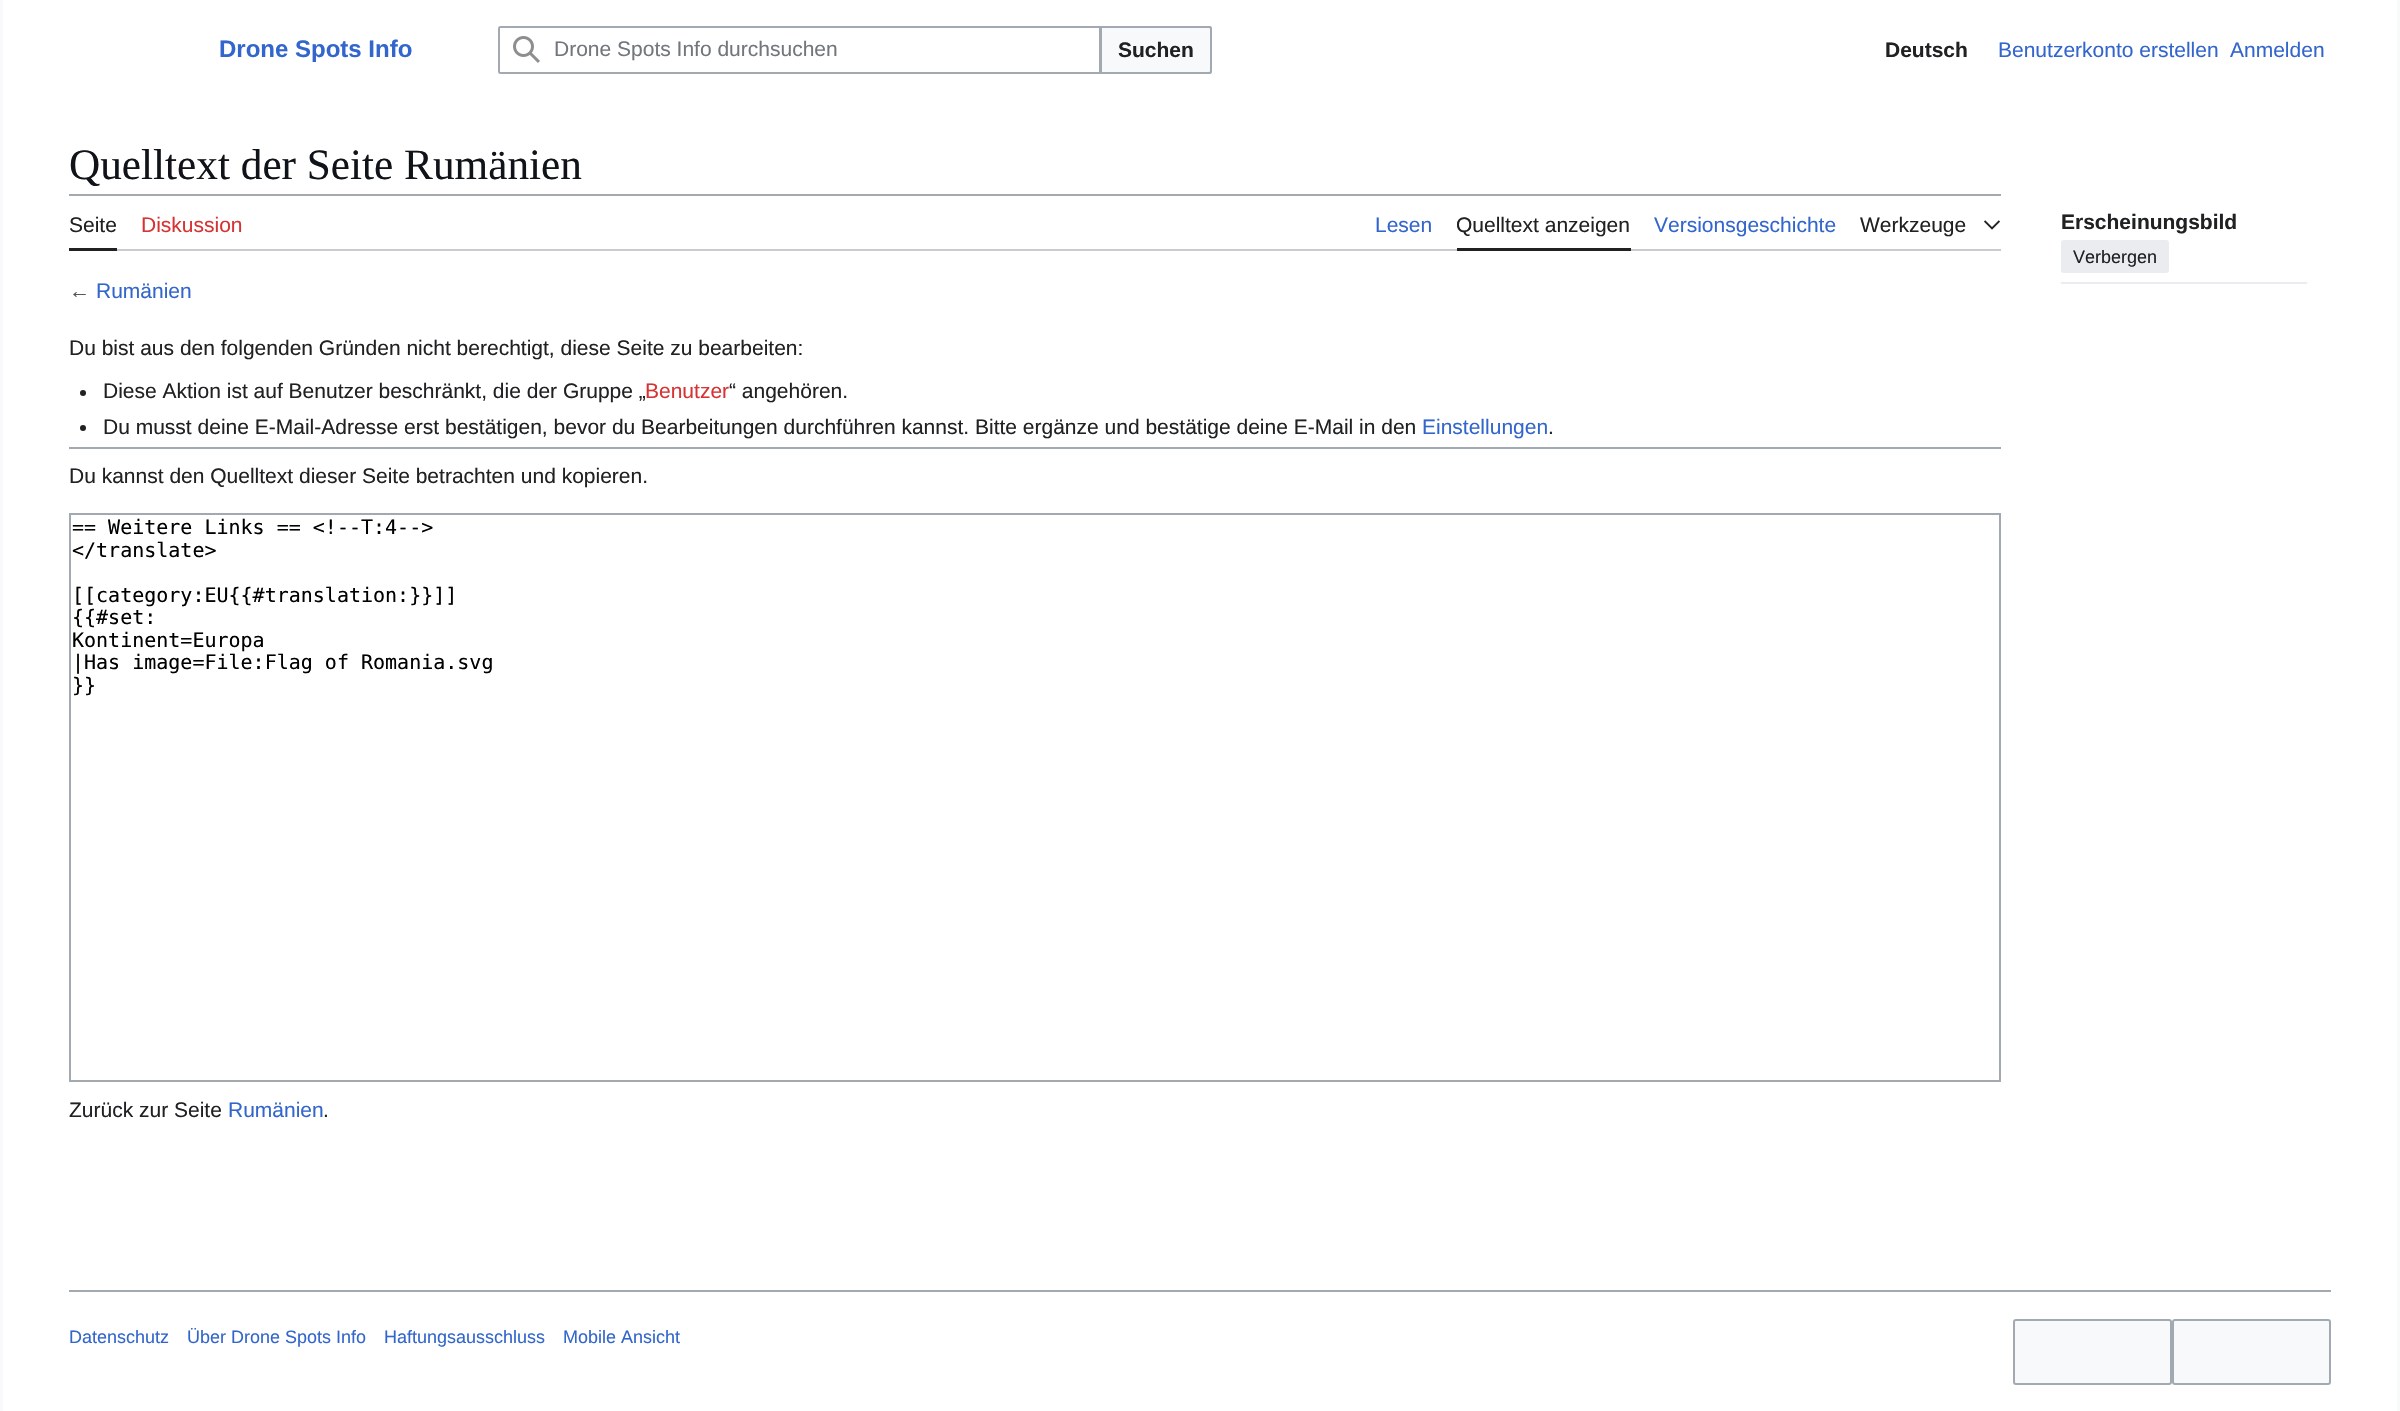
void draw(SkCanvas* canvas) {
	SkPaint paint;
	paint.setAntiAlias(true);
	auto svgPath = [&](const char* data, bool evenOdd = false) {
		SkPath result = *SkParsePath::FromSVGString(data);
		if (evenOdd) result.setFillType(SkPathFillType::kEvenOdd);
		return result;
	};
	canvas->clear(0xfff8f9fa);
	paint.setColor(0xffffffff);
	canvas->drawRect(SkRect::MakeXYWH(3, 0, 2394, 1411), paint);
	SkFont f1(fontMgr->matchFamilyStyle("Liberation Sans", SkFontStyle::Bold()), 24);
	f1.setSubpixel(true);
	paint.setColor(0xff3366cc);
	canvas->drawString("Drone Spots Info", 219, 57, f1, paint);
	paint.setStroke(true);
	paint.setStrokeWidth(2);
	paint.setColor(0xffa2a9b1);
	canvas->drawRoundRect(SkRect::MakeXYWH(499, 27, 712, 46), 2, 2, paint);
	paint.setStroke(false);
	paint.setColor(0xfff8f9fa);
	canvas->drawPath(svgPath("M1101 27H1209C1210 27 1211 28 1211 29V71C1211 72 1210 73 1209 73H1101Z"), paint);
	paint.setStroke(true);
	paint.setColor(0xffa2a9b1);
	canvas->drawPath(svgPath("M1101 27H1209C1210 27 1211 28 1211 29V71C1211 72 1210 73 1209 73H1101Z"), paint);
	paint.setStroke(false);
	paint.setColor(0xffffffff);
	canvas->drawPath(svgPath("M501 26H1101V74H501C499.5 74 498 72.5 498 71V29C498 27.5 499.5 26 501 26Z"), paint);
	paint.setColor(0xffa2a9b1);
	canvas->drawPath(svgPath("M501 26C499 26 498 27 498 29V71C498 73 499 74 501 74H1101V26ZM500 28V72H1099V28Z", true), paint);
	canvas->drawImageRect(SkImages::DeferredFromEncodedData(SkData::MakeFromFileName("img1.png")), SkRect::MakeXYWH(513, 36, 27, 27), SkSamplingOptions());
	SkFont f2(fontMgr->matchFamilyStyle("Liberation Sans", SkFontStyle::Normal()), 21);
	f2.setSubpixel(true);
	paint.setColor(0xff72777d);
	canvas->drawString("Drone Spots Info durchsuchen", 554, 56, f2, paint);
	SkFont f3(fontMgr->matchFamilyStyle("Liberation Sans", SkFontStyle::Bold()), 21);
	f3.setSubpixel(true);
	paint.setColor(0xff202122);
	canvas->drawString("Suchen", 1118, 57, f3, paint);
	canvas->drawString("Deutsch", 1885, 57, f3, paint);
	paint.setColor(0xff3366cc);
	canvas->drawString("Benutzerkonto erstellen", 1998, 57, f2, paint);
	canvas->drawString("Anmelden", 2230, 57, f2, paint);
	SkFont f4(fontMgr->matchFamilyStyle("Liberation Serif", SkFontStyle::Normal()), 43.25);
	f4.setSubpixel(true);
	paint.setColor(0xff101418);
	canvas->drawString("Quelltext der Seite Rumänien", 69, 179, f4, paint);
	paint.setColor(0xffa2a9b1);
	canvas->drawRect(SkRect::MakeXYWH(69, 194, 1932, 2), paint);
	paint.setColor(0xffc8ccd1);
	canvas->drawRect(SkRect::MakeXYWH(117, 249, 1884, 2), paint);
	paint.setColor(0xff202122);
	canvas->drawRect(SkRect::MakeXYWH(69, 248, 48, 3), paint);
	canvas->drawString("Seite", 69, 232, f2, paint);
	paint.setColor(0xffd73333);
	canvas->drawString("Diskussion", 141, 232, f2, paint);
	paint.setColor(0xff3366cc);
	canvas->drawString("Lesen", 1375, 232, f2, paint);
	paint.setColor(0xff202122);
	canvas->drawRect(SkRect::MakeXYWH(1457, 248, 174, 3), paint);
	canvas->drawString("Quelltext anzeigen", 1456, 232, f2, paint);
	paint.setColor(0xff3366cc);
	canvas->drawString("Versionsgeschichte", 1654, 232, f2, paint);
	paint.setColor(0xff202122);
	canvas->drawString("Werkzeuge", 1860, 232, f2, paint);
	canvas->drawImageRect(SkImages::DeferredFromEncodedData(SkData::MakeFromFileName("img2.png")), SkRect::MakeXYWH(1984, 220, 16, 10), SkSamplingOptions());
	paint.setColor(0xffeaecf0);
	canvas->drawRect(SkRect::MakeXYWH(2061, 282, 246, 2), paint);
	paint.setColor(0xff202122);
	canvas->drawString("Erscheinungsbild", 2061, 229, f3, paint);
	paint.setColor(0xffeaecf0);
	canvas->drawRoundRect(SkRect::MakeXYWH(2061, 240, 108, 33), 3, 3, paint);
	SkFont f5(fontMgr->matchFamilyStyle("Liberation Sans", SkFontStyle::Normal()), 18);
	f5.setSubpixel(true);
	paint.setColor(0xff202122);
	canvas->drawString("Verbergen", 2073, 263, f5, paint);
	paint.setColor(0xff54595d);
	canvas->drawString("←", 69, 298, f2, paint);
	paint.setColor(0xff3366cc);
	canvas->drawString("Rumänien", 96, 298, f2, paint);
	paint.setColor(0xff202122);
	canvas->drawString("Du bist aus den folgenden Gründen nicht berechtigt, diese Seite zu bearbeiten:", 69, 355, f2, paint);
	canvas->drawCircle(83, 393, 3, paint);
	canvas->drawString("Diese Aktion ist auf Benutzer beschränkt, die der Gruppe „", 103, 398, f2, paint);
	paint.setColor(0xffd73333);
	canvas->drawString("Benutzer", 645, 398, f2, paint);
	paint.setColor(0xff202122);
	canvas->drawString("“ angehören.", 729, 398, f2, paint);
	canvas->drawCircle(83, 428, 3, paint);
	canvas->drawString("Du musst deine E-Mail-Adresse erst bestätigen, bevor du Bearbeitungen durchführen kannst. Bitte ergänze und bestätige deine E-Mail in den", 103, 434, f2, paint);
	paint.setColor(0xff3366cc);
	canvas->drawString("Einstellungen", 1422, 434, f2, paint);
	paint.setColor(0xff202122);
	canvas->drawString(".", 1548, 434, f2, paint);
	paint.setColor(0xffa2a9b1);
	canvas->drawRect(SkRect::MakeXYWH(69, 447, 1932, 2), paint);
	paint.setColor(0xff202122);
	canvas->drawString("Du kannst den Quelltext dieser Seite betrachten und kopieren.", 69, 483, f2, paint);
	paint.setStroke(true);
	paint.setColor(0xffa2a9b1);
	canvas->drawRect(SkRect::MakeXYWH(70, 514, 1930, 567), paint);
	SkFont f6(fontMgr->matchFamilyStyle("DejaVu Sans Mono", SkFontStyle::Normal()), 20);
	f6.setSubpixel(true);
	paint.setStroke(false);
	paint.setColor(0xff000000);
	canvas->drawString("== Weitere Links == <!--T:4-->", 72, 534, f6, paint);
	canvas->drawString("</translate>", 72, 557, f6, paint);
	canvas->drawString("[[category:EU{{#translation:}}]]", 72, 602, f6, paint);
	canvas->drawString("{{#set:", 72, 624, f6, paint);
	canvas->drawString("Kontinent=Europa", 72, 647, f6, paint);
	canvas->drawString("|Has image=File:Flag of Romania.svg", 72, 669, f6, paint);
	canvas->drawString("}}", 72, 692, f6, paint);
	paint.setColor(0xff202122);
	canvas->drawString("Zurück zur Seite", 69, 1117, f2, paint);
	paint.setColor(0xff3366cc);
	canvas->drawString("Rumänien", 228, 1117, f2, paint);
	paint.setColor(0xff202122);
	canvas->drawString(".", 323, 1117, f2, paint);
	paint.setColor(0xffa2a9b1);
	canvas->drawRect(SkRect::MakeXYWH(69, 1290, 2262, 2), paint);
	paint.setColor(0xff3366cc);
	canvas->drawString("Datenschutz", 69, 1343, f5, paint);
	canvas->drawString("Über Drone Spots Info", 187, 1343, f5, paint);
	canvas->drawString("Haftungsausschluss", 384, 1343, f5, paint);
	canvas->drawString("Mobile Ansicht", 563, 1343, f5, paint);
	paint.setColor(0xfff8f9fa);
	canvas->drawRoundRect(SkRect::MakeXYWH(2014, 1320, 157, 64), 2, 2, paint);
	paint.setStroke(true);
	paint.setColor(0xffa2a9b1);
	canvas->drawRoundRect(SkRect::MakeXYWH(2014, 1320, 157, 64), 2, 2, paint);
	paint.setStroke(false);
	paint.setColor(0xfff8f9fa);
	canvas->drawRoundRect(SkRect::MakeXYWH(2173, 1320, 157, 64), 2, 2, paint);
	paint.setStroke(true);
	paint.setColor(0xffa2a9b1);
	canvas->drawRoundRect(SkRect::MakeXYWH(2173, 1320, 157, 64), 2, 2, paint);
}
